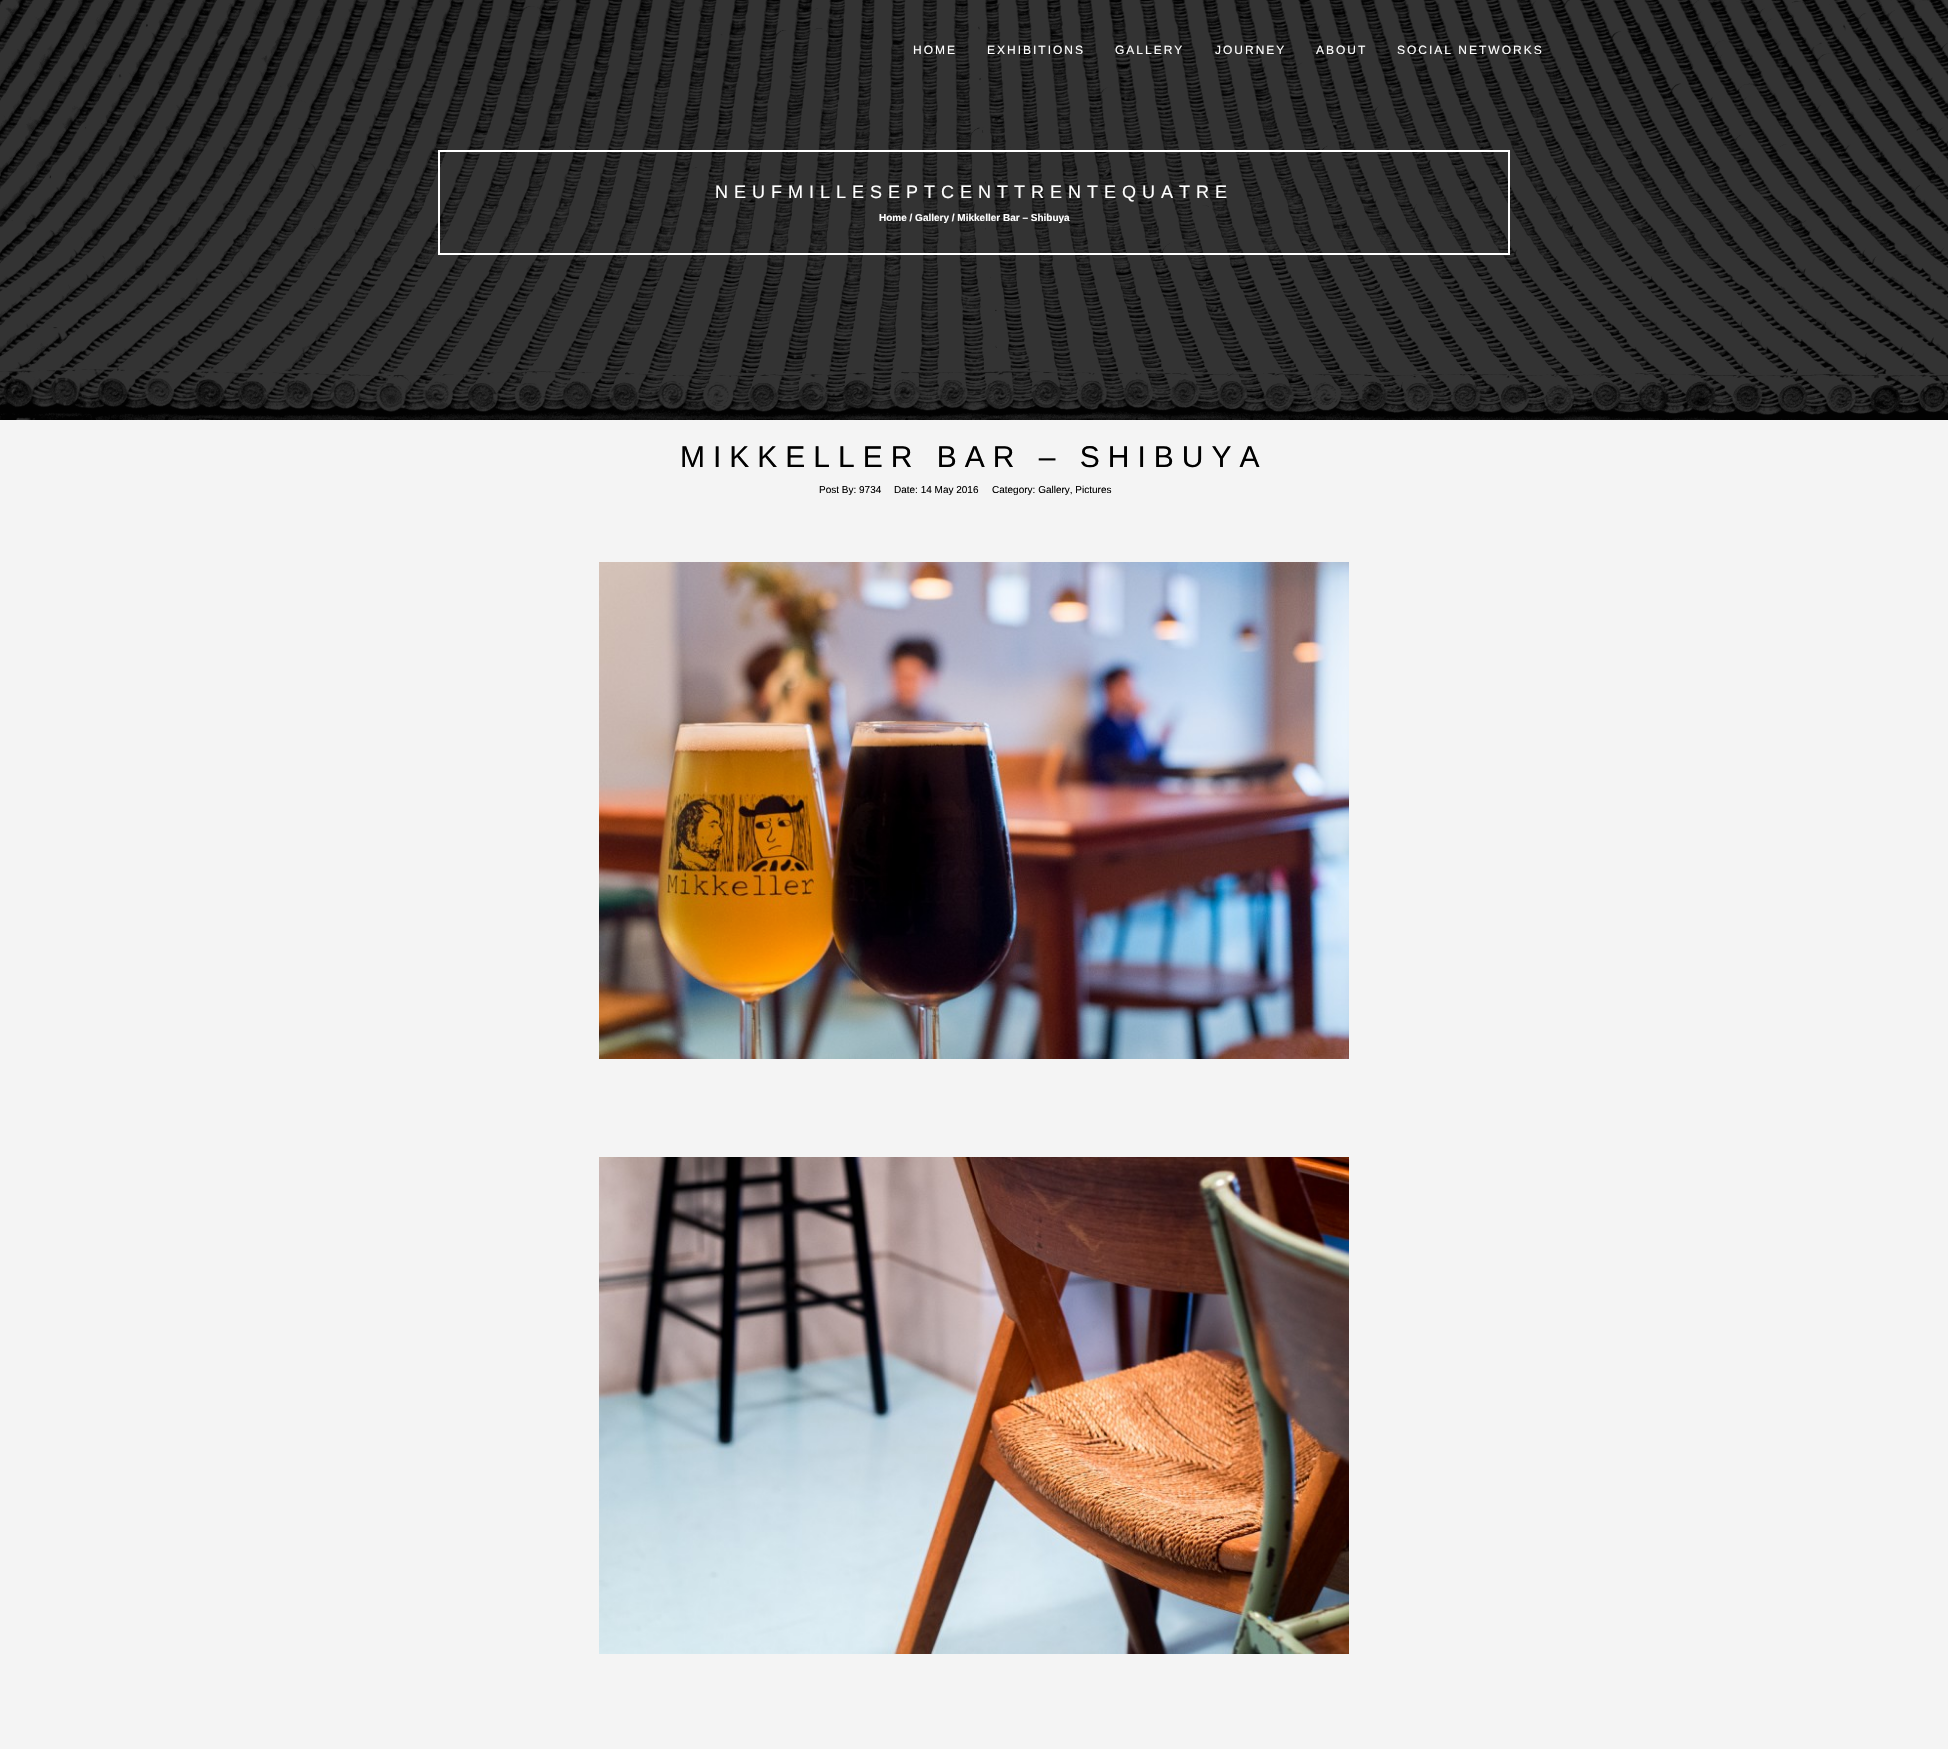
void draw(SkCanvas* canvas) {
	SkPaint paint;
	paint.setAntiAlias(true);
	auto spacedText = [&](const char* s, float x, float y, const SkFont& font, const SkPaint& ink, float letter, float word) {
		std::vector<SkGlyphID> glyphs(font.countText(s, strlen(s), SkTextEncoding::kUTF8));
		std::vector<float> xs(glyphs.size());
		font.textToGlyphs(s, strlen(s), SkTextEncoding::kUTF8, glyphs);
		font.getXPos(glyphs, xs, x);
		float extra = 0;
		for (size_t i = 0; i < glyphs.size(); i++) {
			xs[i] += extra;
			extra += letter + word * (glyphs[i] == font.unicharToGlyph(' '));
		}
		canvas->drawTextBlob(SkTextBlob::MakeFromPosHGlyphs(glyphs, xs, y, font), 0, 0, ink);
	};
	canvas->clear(0xfff4f4f4);
	canvas->drawImageRect(SkImages::DeferredFromEncodedData(SkData::MakeFromFileName("img1.png")), SkRect::MakeXYWH(0, 0, 1948, 420), SkSamplingOptions());
	SkFont f1(fontMgr->matchFamilyStyle("Liberation Sans", SkFontStyle::Normal()), 12);
	f1.setSubpixel(true);
	paint.setColor(0xffffffff);
	spacedText("HOME", 913, 54, f1, paint, 2, 0);
	spacedText("EXHIBITIONS", 987, 54, f1, paint, 2, 0);
	spacedText("GALLERY", 1115, 54, f1, paint, 2, 0);
	spacedText("JOURNEY", 1215, 54, f1, paint, 2, 0);
	spacedText("ABOUT", 1316, 54, f1, paint, 2, 0);
	spacedText("SOCIAL NETWORKS", 1397, 54, f1, paint, 2, 0);
	paint.setStroke(true);
	paint.setStrokeWidth(2);
	canvas->drawRect(SkRect::MakeXYWH(439, 151, 1070, 103), paint);
	SkFont f2(fontMgr->matchFamilyStyle("Liberation Sans", SkFontStyle::Normal()), 18);
	f2.setSubpixel(true);
	paint.setStroke(false);
	spacedText("NEUFMILLESEPTCENTTRENTEQUATRE", 715, 198, f2, paint, 6, 0);
	SkFont f3(fontMgr->matchFamilyStyle("Liberation Sans", SkFontStyle::Bold()), 10);
	f3.setSubpixel(true);
	canvas->drawString("Home / Gallery / Mikkeller Bar – Shibuya", 879, 221, f3, paint);
	SkFont f4(fontMgr->matchFamilyStyle("Liberation Sans", SkFontStyle::Normal()), 30);
	f4.setSubpixel(true);
	paint.setColor(0xff000000);
	spacedText("MIKKELLER BAR – SHIBUYA", 680, 467, f4, paint, 8, 0);
	SkFont f5(fontMgr->matchFamilyStyle("Liberation Sans", SkFontStyle::Normal()), 10);
	f5.setSubpixel(true);
	canvas->drawString("Post By: 9734", 819, 493, f5, paint);
	canvas->drawString("Date: 14 May 2016", 894, 493, f5, paint);
	canvas->drawString("Category: Gallery, Pictures", 992, 493, f5, paint);
	canvas->drawImageRect(SkImages::DeferredFromEncodedData(SkData::MakeFromFileName("img2.png")), SkRect::MakeXYWH(599, 562, 750, 497), SkSamplingOptions());
	canvas->drawImageRect(SkImages::DeferredFromEncodedData(SkData::MakeFromFileName("img3.png")), SkRect::MakeXYWH(599, 1157, 750, 497), SkSamplingOptions());
}
